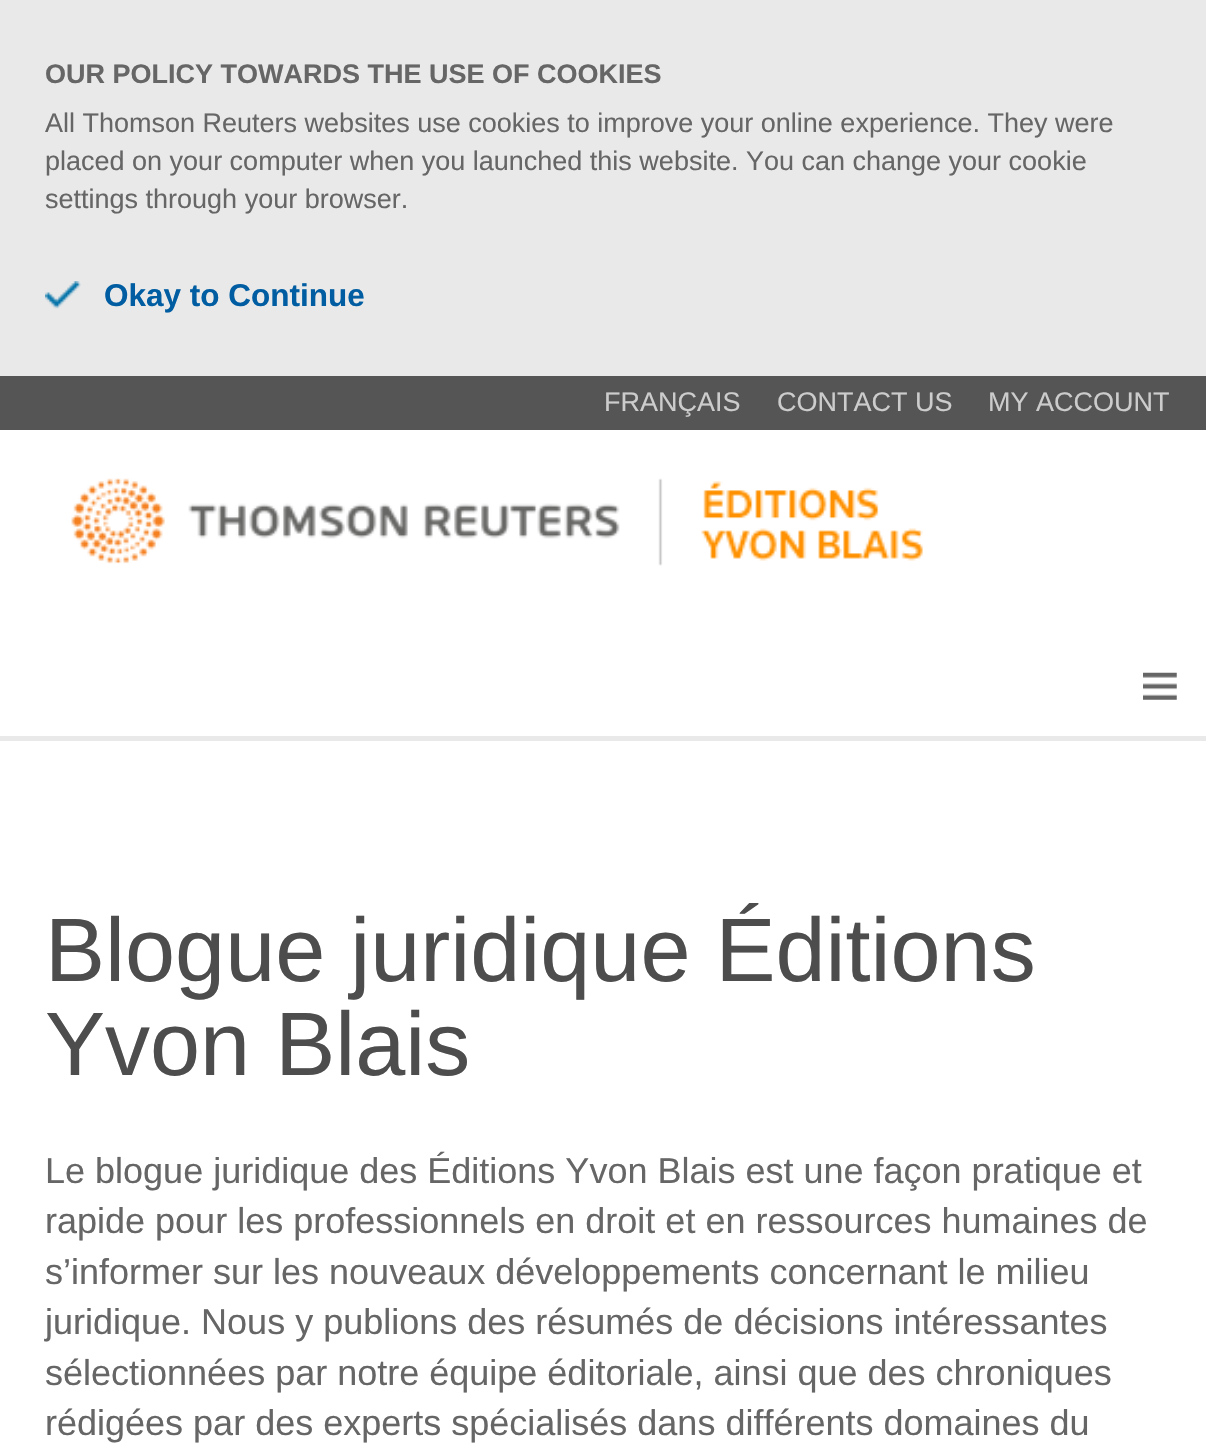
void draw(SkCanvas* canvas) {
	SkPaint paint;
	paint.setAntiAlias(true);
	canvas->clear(0xffffffff);
	paint.setColor(0xffe9e9e9);
	canvas->drawRect(SkRect::MakeXYWH(0, 0, 1206, 376), paint);
	SkFont f1(fontMgr->matchFamilyStyle("Liberation Sans", SkFontStyle::Bold()), 27);
	f1.setSubpixel(true);
	paint.setColor(0xff666666);
	canvas->drawString("OUR POLICY TOWARDS THE USE OF COOKIES", 45, 83, f1, paint);
	SkFont f2(fontMgr->matchFamilyStyle("Liberation Sans", SkFontStyle::Normal()), 27);
	f2.setSubpixel(true);
	canvas->drawString("All Thomson Reuters websites use cookies to improve your online experience. They were", 45, 132, f2, paint);
	canvas->drawString("placed on your computer when you launched this website. You can change your cookie", 45, 170, f2, paint);
	canvas->drawString("settings through your browser.", 45, 208, f2, paint);
	canvas->drawImageRect(SkImages::DeferredFromEncodedData(SkData::MakeFromFileName("img1.png")), SkRect::MakeXYWH(45, 281, 36, 28), SkSamplingOptions());
	SkFont f3(fontMgr->matchFamilyStyle("Liberation Sans", SkFontStyle::Bold()), 31.5);
	f3.setSubpixel(true);
	paint.setColor(0xff005da2);
	canvas->drawString("Okay to Continue", 104, 306, f3, paint);
	paint.setColor(0xff555555);
	canvas->drawRect(SkRect::MakeXYWH(0, 376, 1206, 54), paint);
	paint.setColor(0xffcccccc);
	canvas->drawString("FRANÇAIS", 604, 411, f2, paint);
	canvas->drawString("CONTACT US", 777, 411, f2, paint);
	canvas->drawString("MY ACCOUNT", 988, 411, f2, paint);
	paint.setColor(0xffe9e9e9);
	canvas->drawRect(SkRect::MakeXYWH(0, 736, 1206, 5), paint);
	canvas->drawImageRect(SkImages::DeferredFromEncodedData(SkData::MakeFromFileName("img2.png")), SkRect::MakeXYWH(71, 478, 852, 88), SkSamplingOptions());
	canvas->drawImageRect(SkImages::DeferredFromEncodedData(SkData::MakeFromFileName("img3.png")), SkRect::MakeXYWH(1143, 672, 34, 28), SkSamplingOptions());
	SkFont f4(fontMgr->matchFamilyStyle("Liberation Sans", SkFontStyle::Normal()), 90);
	f4.setSubpixel(true);
	paint.setColor(0xff4d4d4d);
	canvas->drawString("Blogue juridique Éditions", 45, 981, f4, paint);
	canvas->drawString("Yvon Blais", 45, 1075, f4, paint);
	SkFont f5(fontMgr->matchFamilyStyle("Liberation Sans", SkFontStyle::Normal()), 36);
	f5.setSubpixel(true);
	paint.setColor(0xff666666);
	canvas->drawString("Le blogue juridique des Éditions Yvon Blais est une façon pratique et", 45, 1183, f5, paint);
	canvas->drawString("rapide pour les professionnels en droit et en ressources humaines de", 45, 1233, f5, paint);
	canvas->drawString("s’informer sur les nouveaux développements concernant le milieu", 45, 1284, f5, paint);
	canvas->drawString("juridique. Nous y publions des résumés de décisions intéressantes", 45, 1334, f5, paint);
	canvas->drawString("sélectionnées par notre équipe éditoriale, ainsi que des chroniques", 45, 1385, f5, paint);
	canvas->drawString("rédigées par des experts spécialisés dans différents domaines du", 45, 1435, f5, paint);
}
